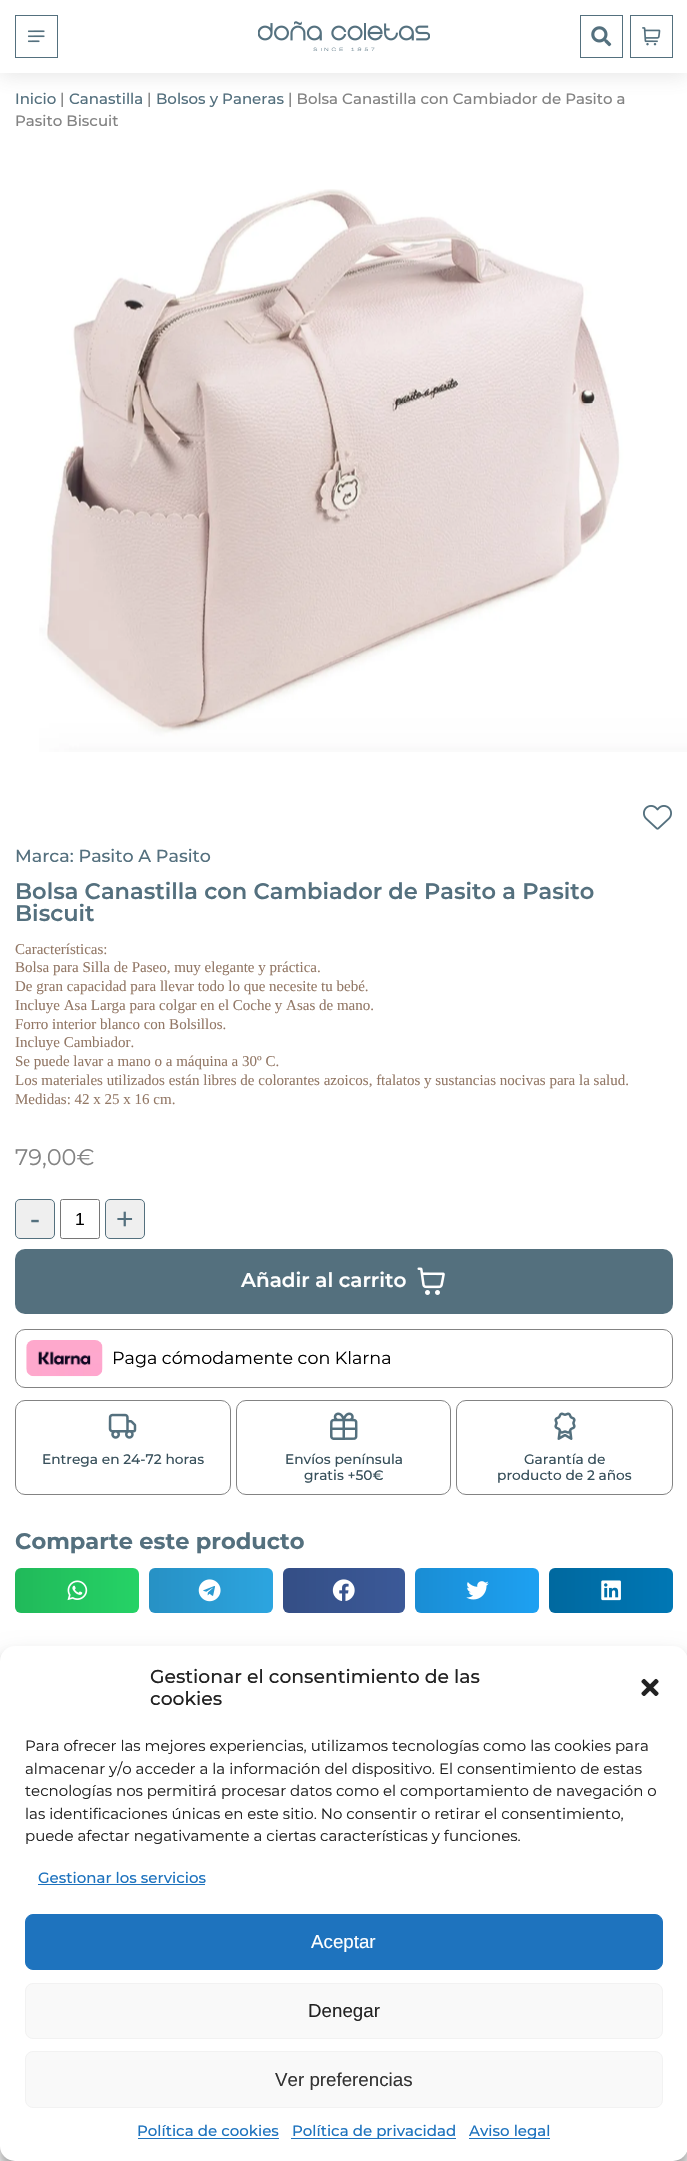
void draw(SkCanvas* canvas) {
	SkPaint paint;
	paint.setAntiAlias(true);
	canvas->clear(0xffffffff);
	paint.setColor(0x29656565);
	paint.setMaskFilter(SkMaskFilter::MakeBlur(kNormal_SkBlurStyle, 9.5));
	canvas->drawRect(SkRect::MakeXYWH(0, 4, 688, 72), paint);
	paint.setMaskFilter(nullptr);
	paint.setColor(0xffffffff);
	canvas->drawRect(SkRect::MakeXYWH(0, 0, 687, 73), paint);
	paint.setStroke(true);
	paint.setStrokeWidth(1);
	paint.setColor(0xff54707e);
	canvas->drawRect(SkRect::MakeXYWH(15.5, 15.5, 42, 42), paint);
	canvas->drawImageRect(SkImages::DeferredFromEncodedData(SkData::MakeFromFileName("img1.png")), SkRect::MakeXYWH(27, 30, 18, 13), SkSamplingOptions());
	canvas->drawImageRect(SkImages::DeferredFromEncodedData(SkData::MakeFromFileName("img2.png")), SkRect::MakeXYWH(258, 21, 172, 30), SkSamplingOptions());
	canvas->drawRect(SkRect::MakeXYWH(580.5, 15.5, 42, 42), paint);
	canvas->drawImageRect(SkImages::DeferredFromEncodedData(SkData::MakeFromFileName("img3.png")), SkRect::MakeXYWH(591, 26, 21, 21), SkSamplingOptions());
	canvas->drawRect(SkRect::MakeXYWH(630.5, 15.5, 42, 42), paint);
	canvas->drawImageRect(SkImages::DeferredFromEncodedData(SkData::MakeFromFileName("img4.png")), SkRect::MakeXYWH(642, 27, 19, 19), SkSamplingOptions());
	SkFont f1(fontMgr->matchFamilyStyle("Montserrat", SkFontStyle(500, SkFontStyle::kNormal_Width, SkFontStyle::kUpright_Slant)), 15);
	f1.setSubpixel(true);
	paint.setStroke(false);
	canvas->drawString("Inicio", 15, 104, f1, paint);
	paint.setColor(0xff838383);
	canvas->drawString("|", 60, 104, f1, paint);
	paint.setColor(0xff54707e);
	canvas->drawString("Canastilla", 69, 104, f1, paint);
	paint.setColor(0xff838383);
	canvas->drawString("|", 147, 104, f1, paint);
	paint.setColor(0xff54707e);
	canvas->drawString("Bolsos y Paneras", 156, 104, f1, paint);
	paint.setColor(0xff838383);
	canvas->drawString("| Bolsa Canastilla con Cambiador de Pasito a", 288, 104, f1, paint);
	canvas->drawString("Pasito Biscuit", 15, 126, f1, paint);
	canvas->drawImageRect(SkImages::DeferredFromEncodedData(SkData::MakeFromFileName("img5.png")), SkRect::MakeXYWH(39, 189, 648, 563), SkSamplingOptions());
	canvas->drawImageRect(SkImages::DeferredFromEncodedData(SkData::MakeFromFileName("img6.png")), SkRect::MakeXYWH(643, 805, 29, 25), SkSamplingOptions());
	SkFont f2(fontMgr->matchFamilyStyle("Montserrat", SkFontStyle(500, SkFontStyle::kNormal_Width, SkFontStyle::kUpright_Slant)), 17.5);
	f2.setSubpixel(true);
	paint.setColor(0xff54707e);
	canvas->drawString("Marca: Pasito A Pasito", 15, 862, f2, paint);
	SkFont f3(fontMgr->matchFamilyStyle("Montserrat", SkFontStyle(600, SkFontStyle::kNormal_Width, SkFontStyle::kUpright_Slant)), 22.5);
	f3.setSubpixel(true);
	canvas->drawString("Bolsa Canastilla con Cambiador de Pasito a Pasito", 15, 899, f3, paint);
	canvas->drawString("Biscuit", 15, 921, f3, paint);
	SkFont f4(fontMgr->matchFamilyStyle("Liberation Serif", SkFontStyle::Normal()), 15);
	f4.setSubpixel(true);
	paint.setColor(0xff937866);
	canvas->drawString("Características:", 15, 954, f4, paint);
	canvas->drawString("Bolsa para Silla de Paseo, muy elegante y práctica.", 15, 972, f4, paint);
	canvas->drawString("De gran capacidad para llevar todo lo que necesite tu bebé.", 15, 991, f4, paint);
	canvas->drawString("Incluye Asa Larga para colgar en el Coche y Asas de mano.", 15, 1010, f4, paint);
	canvas->drawString("Forro interior blanco con Bolsillos.", 15, 1029, f4, paint);
	canvas->drawString("Incluye Cambiador.", 15, 1047, f4, paint);
	canvas->drawString("Se puede lavar a mano o a máquina a 30º C.", 15, 1066, f4, paint);
	canvas->drawString("Los materiales utilizados están libres de colorantes azoicos, ftalatos y sustancias nocivas para la salud.", 15, 1085, f4, paint);
	canvas->drawString("Medidas: 42 x 25 x 16 cm.", 15, 1104, f4, paint);
	SkFont f5(fontMgr->matchFamilyStyle("Montserrat", SkFontStyle::Normal()), 22.5);
	f5.setSubpixel(true);
	paint.setColor(0xff838383);
	canvas->drawString("79,00€", 15, 1165, f5, paint);
	paint.setColor(0xffefefef);
	canvas->drawRoundRect(SkRect::MakeXYWH(15.5, 1199.5, 39, 39), 4.5, 4.5, paint);
	paint.setStroke(true);
	paint.setColor(0xff54707e);
	canvas->drawRoundRect(SkRect::MakeXYWH(15.5, 1199.5, 39, 39), 4.5, 4.5, paint);
	SkFont f6(fontMgr->matchFamilyStyle("Liberation Sans", SkFontStyle::Normal()), 30);
	f6.setSubpixel(true);
	paint.setStroke(false);
	canvas->drawString("-", 30, 1229, f6, paint);
	paint.setStroke(true);
	paint.setColor(0xff767676);
	canvas->drawRoundRect(SkRect::MakeXYWH(60.5, 1199.5, 39, 39), 2, 2, paint);
	SkFont f7(fontMgr->matchFamilyStyle("Liberation Sans", SkFontStyle::Normal()), 17.5);
	f7.setSubpixel(true);
	paint.setStroke(false);
	paint.setColor(0xff000000);
	canvas->drawString("1", 75, 1225, f7, paint);
	paint.setColor(0xffefefef);
	canvas->drawRoundRect(SkRect::MakeXYWH(105.5, 1199.5, 39, 39), 4.5, 4.5, paint);
	paint.setStroke(true);
	paint.setColor(0xff54707e);
	canvas->drawRoundRect(SkRect::MakeXYWH(105.5, 1199.5, 39, 39), 4.5, 4.5, paint);
	paint.setStroke(false);
	canvas->drawString("+", 116, 1229, f6, paint);
	canvas->drawRoundRect(SkRect::MakeXYWH(15, 1249, 658, 65), 10, 10, paint);
	SkFont f8(fontMgr->matchFamilyStyle("Montserrat", SkFontStyle(600, SkFontStyle::kNormal_Width, SkFontStyle::kUpright_Slant)), 20);
	f8.setSubpixel(true);
	paint.setColor(0xffffffff);
	canvas->drawString("Añadir al carrito", 241, 1287, f8, paint);
	canvas->drawImageRect(SkImages::DeferredFromEncodedData(SkData::MakeFromFileName("img7.png")), SkRect::MakeXYWH(417, 1267, 28, 28), SkSamplingOptions());
	paint.setStroke(true);
	paint.setColor(0xff838383);
	canvas->drawRoundRect(SkRect::MakeXYWH(15.5, 1329.5, 657, 58), 9.5, 9.5, paint);
	canvas->drawImageRect(SkImages::DeferredFromEncodedData(SkData::MakeFromFileName("img8.png")), SkRect::MakeXYWH(26, 1340, 77, 37), SkSamplingOptions());
	SkFont f9(fontMgr->matchFamilyStyle("Montserrat", SkFontStyle::Normal()), 17.5);
	f9.setSubpixel(true);
	paint.setStroke(false);
	paint.setColor(0xff000000);
	canvas->drawString("Paga cómodamente con Klarna", 112, 1364, f9, paint);
	paint.setStroke(true);
	paint.setColor(0xff838383);
	canvas->drawRoundRect(SkRect::MakeXYWH(15.5, 1400.5, 215, 94), 9.5, 9.5, paint);
	canvas->drawImageRect(SkImages::DeferredFromEncodedData(SkData::MakeFromFileName("img9.png")), SkRect::MakeXYWH(108, 1413, 29, 26), SkSamplingOptions());
	SkFont f10(fontMgr->matchFamilyStyle("Montserrat", SkFontStyle(500, SkFontStyle::kNormal_Width, SkFontStyle::kUpright_Slant)), 13.75);
	f10.setSubpixel(true);
	paint.setStroke(false);
	paint.setColor(0xff38505b);
	canvas->drawString("Entrega en 24-72 horas", 42, 1464, f10, paint);
	paint.setStroke(true);
	paint.setColor(0xff838383);
	canvas->drawRoundRect(SkRect::MakeXYWH(236.5, 1400.5, 214, 94), 9.5, 9.5, paint);
	canvas->drawImageRect(SkImages::DeferredFromEncodedData(SkData::MakeFromFileName("img10.png")), SkRect::MakeXYWH(330, 1412, 28, 28), SkSamplingOptions());
	paint.setStroke(false);
	paint.setColor(0xff38505b);
	canvas->drawString("Envíos península", 285, 1464, f10, paint);
	canvas->drawString("gratis +50€", 304, 1480, f10, paint);
	paint.setStroke(true);
	paint.setColor(0xff838383);
	canvas->drawRoundRect(SkRect::MakeXYWH(456.5, 1400.5, 216, 94), 9.5, 9.5, paint);
	canvas->drawImageRect(SkImages::DeferredFromEncodedData(SkData::MakeFromFileName("img11.png")), SkRect::MakeXYWH(554, 1412, 22, 28), SkSamplingOptions());
	paint.setStroke(false);
	paint.setColor(0xff38505b);
	canvas->drawString("Garantía de", 524, 1464, f10, paint);
	canvas->drawString("producto de 2 años", 497, 1480, f10, paint);
	SkFont f11(fontMgr->matchFamilyStyle("Montserrat", SkFontStyle::Bold()), 22.5);
	f11.setSubpixel(true);
	paint.setColor(0xff54707e);
	canvas->drawString("Comparte este producto", 15, 1549, f11, paint);
	paint.setColor(0xff25d366);
	canvas->drawRoundRect(SkRect::MakeXYWH(15, 1568, 124, 45), 6, 6, paint);
	{
		const SkColor colors[] = {0x1f000000, 0x00000000};
		const float stops[] = {0, 1};
		const SkPoint ends[] = {{15, 1590}, {139, 1590}};
		paint.setShader(SkGradientShader::MakeLinear(ends, colors, stops, 2, SkTileMode::kClamp));
		paint.setAlpha(255);
	}
	canvas->drawRoundRect(SkRect::MakeXYWH(15, 1568, 124, 45), 6, 6, paint);
	canvas->drawImageRect(SkImages::DeferredFromEncodedData(SkData::MakeFromFileName("img12.png")), SkRect::MakeXYWH(67, 1580, 21, 21), SkSamplingOptions());
	paint.setShader(nullptr);
	paint.setColor(0xff2ca5e0);
	canvas->drawRoundRect(SkRect::MakeXYWH(149, 1568, 124, 45), 6, 6, paint);
	{
		const SkColor colors[] = {0x1f000000, 0x00000000};
		const float stops[] = {0, 1};
		const SkPoint ends[] = {{149, 1590}, {273, 1590}};
		paint.setShader(SkGradientShader::MakeLinear(ends, colors, stops, 2, SkTileMode::kClamp));
		paint.setAlpha(255);
	}
	canvas->drawRoundRect(SkRect::MakeXYWH(149, 1568, 124, 45), 6, 6, paint);
	canvas->drawImageRect(SkImages::DeferredFromEncodedData(SkData::MakeFromFileName("img13.png")), SkRect::MakeXYWH(198, 1579, 23, 23), SkSamplingOptions());
	paint.setShader(nullptr);
	paint.setColor(0xff3b5998);
	canvas->drawRoundRect(SkRect::MakeXYWH(283, 1568, 122, 45), 6, 6, paint);
	{
		const SkColor colors[] = {0x1f000000, 0x00000000};
		const float stops[] = {0, 1};
		const SkPoint ends[] = {{283, 1590}, {405, 1590}};
		paint.setShader(SkGradientShader::MakeLinear(ends, colors, stops, 2, SkTileMode::kClamp));
		paint.setAlpha(255);
	}
	canvas->drawRoundRect(SkRect::MakeXYWH(283, 1568, 122, 45), 6, 6, paint);
	canvas->drawImageRect(SkImages::DeferredFromEncodedData(SkData::MakeFromFileName("img14.png")), SkRect::MakeXYWH(332, 1579, 23, 22), SkSamplingOptions());
	paint.setShader(nullptr);
	paint.setColor(0xff1da1f2);
	canvas->drawRoundRect(SkRect::MakeXYWH(415, 1568, 124, 45), 6, 6, paint);
	{
		const SkColor colors[] = {0x1f000000, 0x00000000};
		const float stops[] = {0, 1};
		const SkPoint ends[] = {{415, 1590}, {539, 1590}};
		paint.setShader(SkGradientShader::MakeLinear(ends, colors, stops, 2, SkTileMode::kClamp));
		paint.setAlpha(255);
	}
	canvas->drawRoundRect(SkRect::MakeXYWH(415, 1568, 124, 45), 6, 6, paint);
	canvas->drawImageRect(SkImages::DeferredFromEncodedData(SkData::MakeFromFileName("img15.png")), SkRect::MakeXYWH(466, 1581, 23, 19), SkSamplingOptions());
	paint.setShader(nullptr);
	paint.setColor(0xff0077b5);
	canvas->drawRoundRect(SkRect::MakeXYWH(549, 1568, 124, 45), 6, 6, paint);
	{
		const SkColor colors[] = {0x1f000000, 0x00000000};
		const float stops[] = {0, 1};
		const SkPoint ends[] = {{549, 1590}, {673, 1590}};
		paint.setShader(SkGradientShader::MakeLinear(ends, colors, stops, 2, SkTileMode::kClamp));
		paint.setAlpha(255);
	}
	canvas->drawRoundRect(SkRect::MakeXYWH(549, 1568, 124, 45), 6, 6, paint);
	canvas->drawImageRect(SkImages::DeferredFromEncodedData(SkData::MakeFromFileName("img16.png")), SkRect::MakeXYWH(601, 1580, 20, 21), SkSamplingOptions());
	paint.setShader(nullptr);
	paint.setColor(0x3b000000);
	paint.setMaskFilter(SkMaskFilter::MakeBlur(kNormal_SkBlurStyle, 4));
	canvas->drawRoundRect(SkRect::MakeXYWH(0, 1654, 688, 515), 15, 15, paint);
	paint.setMaskFilter(nullptr);
	paint.setColor(0x30000000);
	paint.setMaskFilter(SkMaskFilter::MakeBlur(kNormal_SkBlurStyle, 12.5));
	canvas->drawRoundRect(SkRect::MakeXYWH(0, 1659, 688, 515), 15, 15, paint);
	paint.setMaskFilter(nullptr);
	paint.setColor(0xffffffff);
	canvas->drawRoundRect(SkRect::MakeXYWH(0, 1646, 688, 515), 15, 15, paint);
	SkFont f12(fontMgr->matchFamilyStyle("Montserrat", SkFontStyle(500, SkFontStyle::kNormal_Width, SkFontStyle::kUpright_Slant)), 18.75);
	f12.setSubpixel(true);
	paint.setColor(0xff222222);
	canvas->drawString("Gestionar el consentimiento de las", 150, 1683, f12, paint);
	canvas->drawString("cookies", 150, 1705, f12, paint);
	canvas->drawImageRect(SkImages::DeferredFromEncodedData(SkData::MakeFromFileName("img17.png")), SkRect::MakeXYWH(641, 1678, 18, 18), SkSamplingOptions());
	SkFont f13(fontMgr->matchFamilyStyle("Montserrat", SkFontStyle::Normal()), 15);
	f13.setSubpixel(true);
	canvas->drawString("Para ofrecer las mejores experiencias, utilizamos tecnologías como las cookies para", 25, 1751, f13, paint);
	canvas->drawString("almacenar y/o acceder a la información del dispositivo. El consentimiento de estas", 25, 1774, f13, paint);
	canvas->drawString("tecnologías nos permitirá procesar datos como el comportamiento de navegación o", 25, 1796, f13, paint);
	canvas->drawString("las identificaciones únicas en este sitio. No consentir o retirar el consentimiento,", 25, 1819, f13, paint);
	canvas->drawString("puede afectar negativamente a ciertas características y funciones.", 25, 1841, f13, paint);
	paint.setColor(0xff1e73be);
	canvas->drawString("Gestionar los servicios", 38, 1883, f1, paint);
	canvas->drawRect(SkRect::MakeXYWH(38, 1884, 167, 1), paint);
	canvas->drawRoundRect(SkRect::MakeXYWH(25.5, 1914.5, 637, 55), 7.5, 7.5, paint);
	paint.setStroke(true);
	canvas->drawRoundRect(SkRect::MakeXYWH(25.5, 1914.5, 637, 55), 7.5, 7.5, paint);
	SkFont f14(fontMgr->matchFamilyStyle("Liberation Sans", SkFontStyle::Normal()), 18.75);
	f14.setSubpixel(true);
	paint.setStroke(false);
	paint.setColor(0xffffffff);
	canvas->drawString("Aceptar", 311, 1948, f14, paint);
	paint.setColor(0xfff9f9f9);
	canvas->drawRoundRect(SkRect::MakeXYWH(25.5, 1983.5, 637, 55), 7.5, 7.5, paint);
	paint.setStroke(true);
	paint.setColor(0xfff2f2f2);
	canvas->drawRoundRect(SkRect::MakeXYWH(25.5, 1983.5, 637, 55), 7.5, 7.5, paint);
	paint.setStroke(false);
	paint.setColor(0xff222222);
	canvas->drawString("Denegar", 308, 2017, f14, paint);
	paint.setColor(0xfff9f9f9);
	canvas->drawRoundRect(SkRect::MakeXYWH(25.5, 2051.5, 637, 56), 7.5, 7.5, paint);
	paint.setStroke(true);
	paint.setColor(0xfff2f2f2);
	canvas->drawRoundRect(SkRect::MakeXYWH(25.5, 2051.5, 637, 56), 7.5, 7.5, paint);
	paint.setStroke(false);
	paint.setColor(0xff333333);
	canvas->drawString("Ver preferencias", 275, 2086, f14, paint);
	paint.setColor(0xff1e73be);
	canvas->drawString("Política de cookies", 137, 2136, f1, paint);
	canvas->drawRect(SkRect::MakeXYWH(138, 2138, 141, 1), paint);
	canvas->drawRect(SkRect::MakeXYWH(291, 2138, 165, 1), paint);
	canvas->drawString("Política de privacidad", 292, 2136, f1, paint);
	canvas->drawRect(SkRect::MakeXYWH(469, 2138, 81, 1), paint);
	canvas->drawString("Aviso legal", 469, 2136, f1, paint);
}
